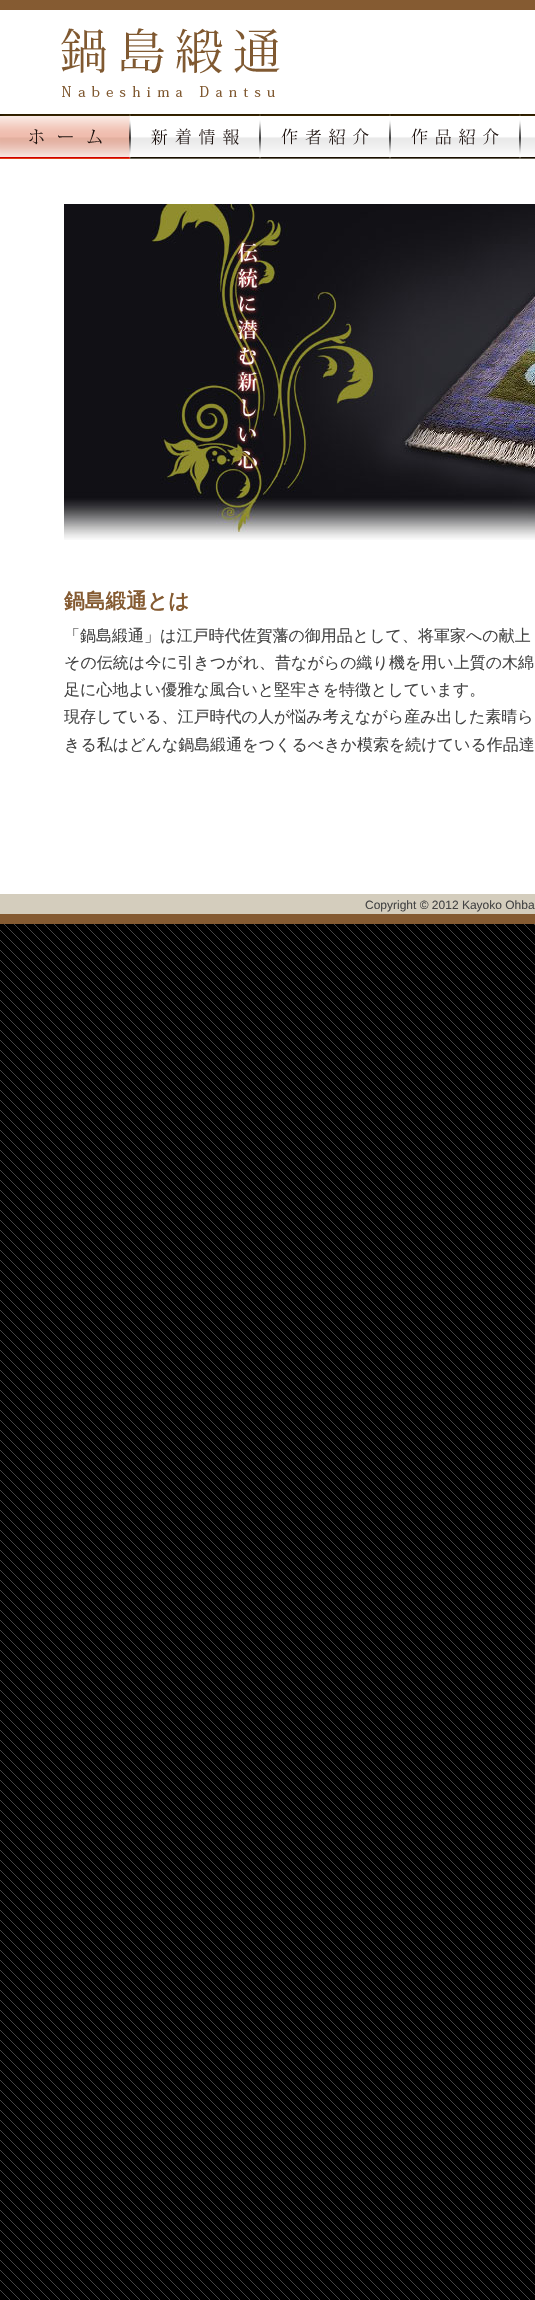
void draw(SkCanvas* canvas) {
	SkPaint paint;
	paint.setAntiAlias(true);
	canvas->clear(0xff444444);
	canvas->drawImageRect(SkImages::DeferredFromEncodedData(SkData::MakeFromFileName("img1.png")), SkRect::MakeXYWH(0, 924, 535, 1376), SkSamplingOptions());
	paint.setColor(0xffffffff);
	canvas->drawRect(SkRect::MakeXYWH(0, 10, 535, 884), paint);
	paint.setColor(0xff855b32);
	canvas->drawRect(SkRect::MakeXYWH(0, 0, 535, 10), paint);
	canvas->drawImageRect(SkImages::DeferredFromEncodedData(SkData::MakeFromFileName("img2.png")), SkRect::MakeXYWH(61, 28, 219, 69), SkSamplingOptions());
	canvas->drawImageRect(SkImages::DeferredFromEncodedData(SkData::MakeFromFileName("img3.png")), SkRect::MakeXYWH(0, 137, 521, 22), SkSamplingOptions());
	canvas->drawImageRect(SkImages::DeferredFromEncodedData(SkData::MakeFromFileName("img4.png")), SkRect::MakeXYWH(0, 114, 130, 45), SkSamplingOptions());
	canvas->drawImageRect(SkImages::DeferredFromEncodedData(SkData::MakeFromFileName("img5.png")), SkRect::MakeXYWH(130, 114, 130, 45), SkSamplingOptions());
	canvas->drawImageRect(SkImages::DeferredFromEncodedData(SkData::MakeFromFileName("img6.png")), SkRect::MakeXYWH(260, 114, 130, 45), SkSamplingOptions());
	canvas->drawImageRect(SkImages::DeferredFromEncodedData(SkData::MakeFromFileName("img7.png")), SkRect::MakeXYWH(390, 114, 130, 45), SkSamplingOptions());
	canvas->drawImageRect(SkImages::DeferredFromEncodedData(SkData::MakeFromFileName("img8.png")), SkRect::MakeXYWH(520, 114, 15, 45), SkSamplingOptions());
	canvas->drawImageRect(SkImages::DeferredFromEncodedData(SkData::MakeFromFileName("img9.png")), SkRect::MakeXYWH(64, 204, 471, 336), SkSamplingOptions());
	SkFont f1(fontMgr->matchFamilyStyle("WenQuanYi Zen Hei", SkFontStyle::Bold()), 20.75);
	f1.setSubpixel(true);
	canvas->drawString("鍋島緞通とは", 64, 608, f1, paint);
	SkFont f2(fontMgr->matchFamilyStyle("WenQuanYi Zen Hei", SkFontStyle(500, SkFontStyle::kNormal_Width, SkFontStyle::kUpright_Slant)), 16);
	f2.setSubpixel(true);
	paint.setColor(0xff444444);
	canvas->drawString("「鍋島緞通」は江戸時代佐賀藩の御用品として、将軍家への献上", 64, 641, f2, paint);
	canvas->drawString("その伝統は今に引きつがれ、昔ながらの織り機を用い上質の木綿", 64, 668, f2, paint);
	canvas->drawString("足に心地よい優雅な風合いと堅牢さを特徴としています。", 64, 695, f2, paint);
	canvas->drawString("現存している、江戸時代の人が悩み考えながら産み出した素晴ら", 64, 722, f2, paint);
	canvas->drawString("きる私はどんな鍋島緞通をつくるべきか模索を続けている作品達", 64, 750, f2, paint);
	paint.setColor(0xffd4cdbd);
	canvas->drawRect(SkRect::MakeXYWH(0, 894, 535, 20), paint);
	paint.setColor(0xff855b32);
	canvas->drawRect(SkRect::MakeXYWH(0, 914, 535, 10), paint);
	SkFont f3(fontMgr->matchFamilyStyle("Liberation Sans", SkFontStyle::Normal()), 12);
	f3.setSubpixel(true);
	paint.setColor(0xff444444);
	canvas->drawString("Copyright © 2012 Kayoko Ohba", 365, 909, f3, paint);
}
